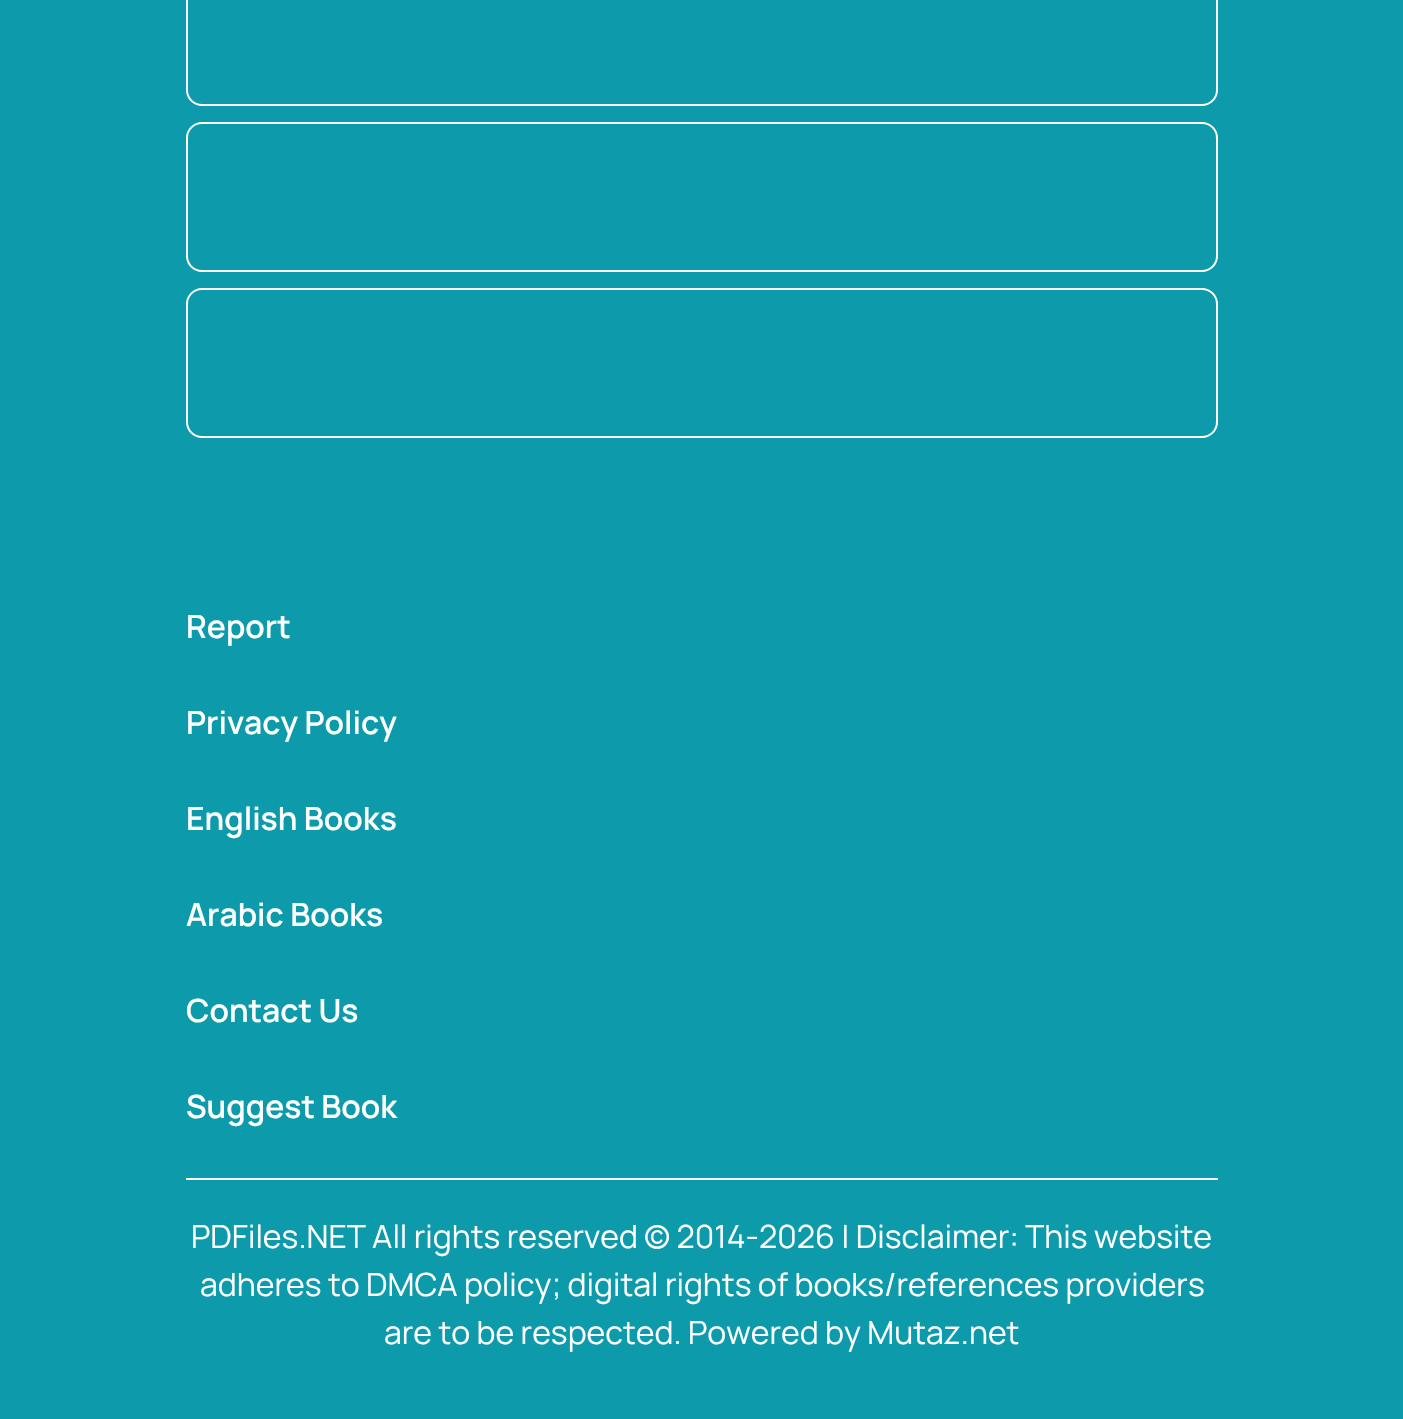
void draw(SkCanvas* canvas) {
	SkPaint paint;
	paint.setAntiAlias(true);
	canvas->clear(0xff0d9aab);
	paint.setStroke(true);
	paint.setStrokeWidth(2);
	paint.setColor(0xffffffff);
	canvas->drawRoundRect(SkRect::MakeXYWH(187, -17, 1030, 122), 15, 15, paint);
	canvas->drawRoundRect(SkRect::MakeXYWH(187, 123, 1030, 148), 15, 15, paint);
	canvas->drawRoundRect(SkRect::MakeXYWH(187, 289, 1030, 148), 15, 15, paint);
	SkFont f1(fontMgr->matchFamilyStyle("Manrope", SkFontStyle(600, SkFontStyle::kNormal_Width, SkFontStyle::kUpright_Slant)), 32);
	f1.setSubpixel(true);
	paint.setStroke(false);
	canvas->drawString("Report", 186, 638, f1, paint);
	canvas->drawString("Privacy Policy", 186, 734, f1, paint);
	canvas->drawString("English Books", 186, 830, f1, paint);
	canvas->drawString("Arabic Books", 186, 926, f1, paint);
	canvas->drawString("Contact Us", 186, 1022, f1, paint);
	canvas->drawString("Suggest Book", 186, 1118, f1, paint);
	canvas->drawRect(SkRect::MakeXYWH(186, 1178, 1032, 2), paint);
	SkFont f2(fontMgr->matchFamilyStyle("Manrope", SkFontStyle::Normal()), 32);
	f2.setSubpixel(true);
	canvas->drawString("PDFiles.NET All rights reserved © 2014-2026 | Disclaimer: This website", 191, 1248, f2, paint);
	canvas->drawString("adheres to DMCA policy; digital rights of books/references providers", 200, 1296, f2, paint);
	canvas->drawString("are to be respected. Powered by Mutaz.net", 384, 1344, f2, paint);
}
